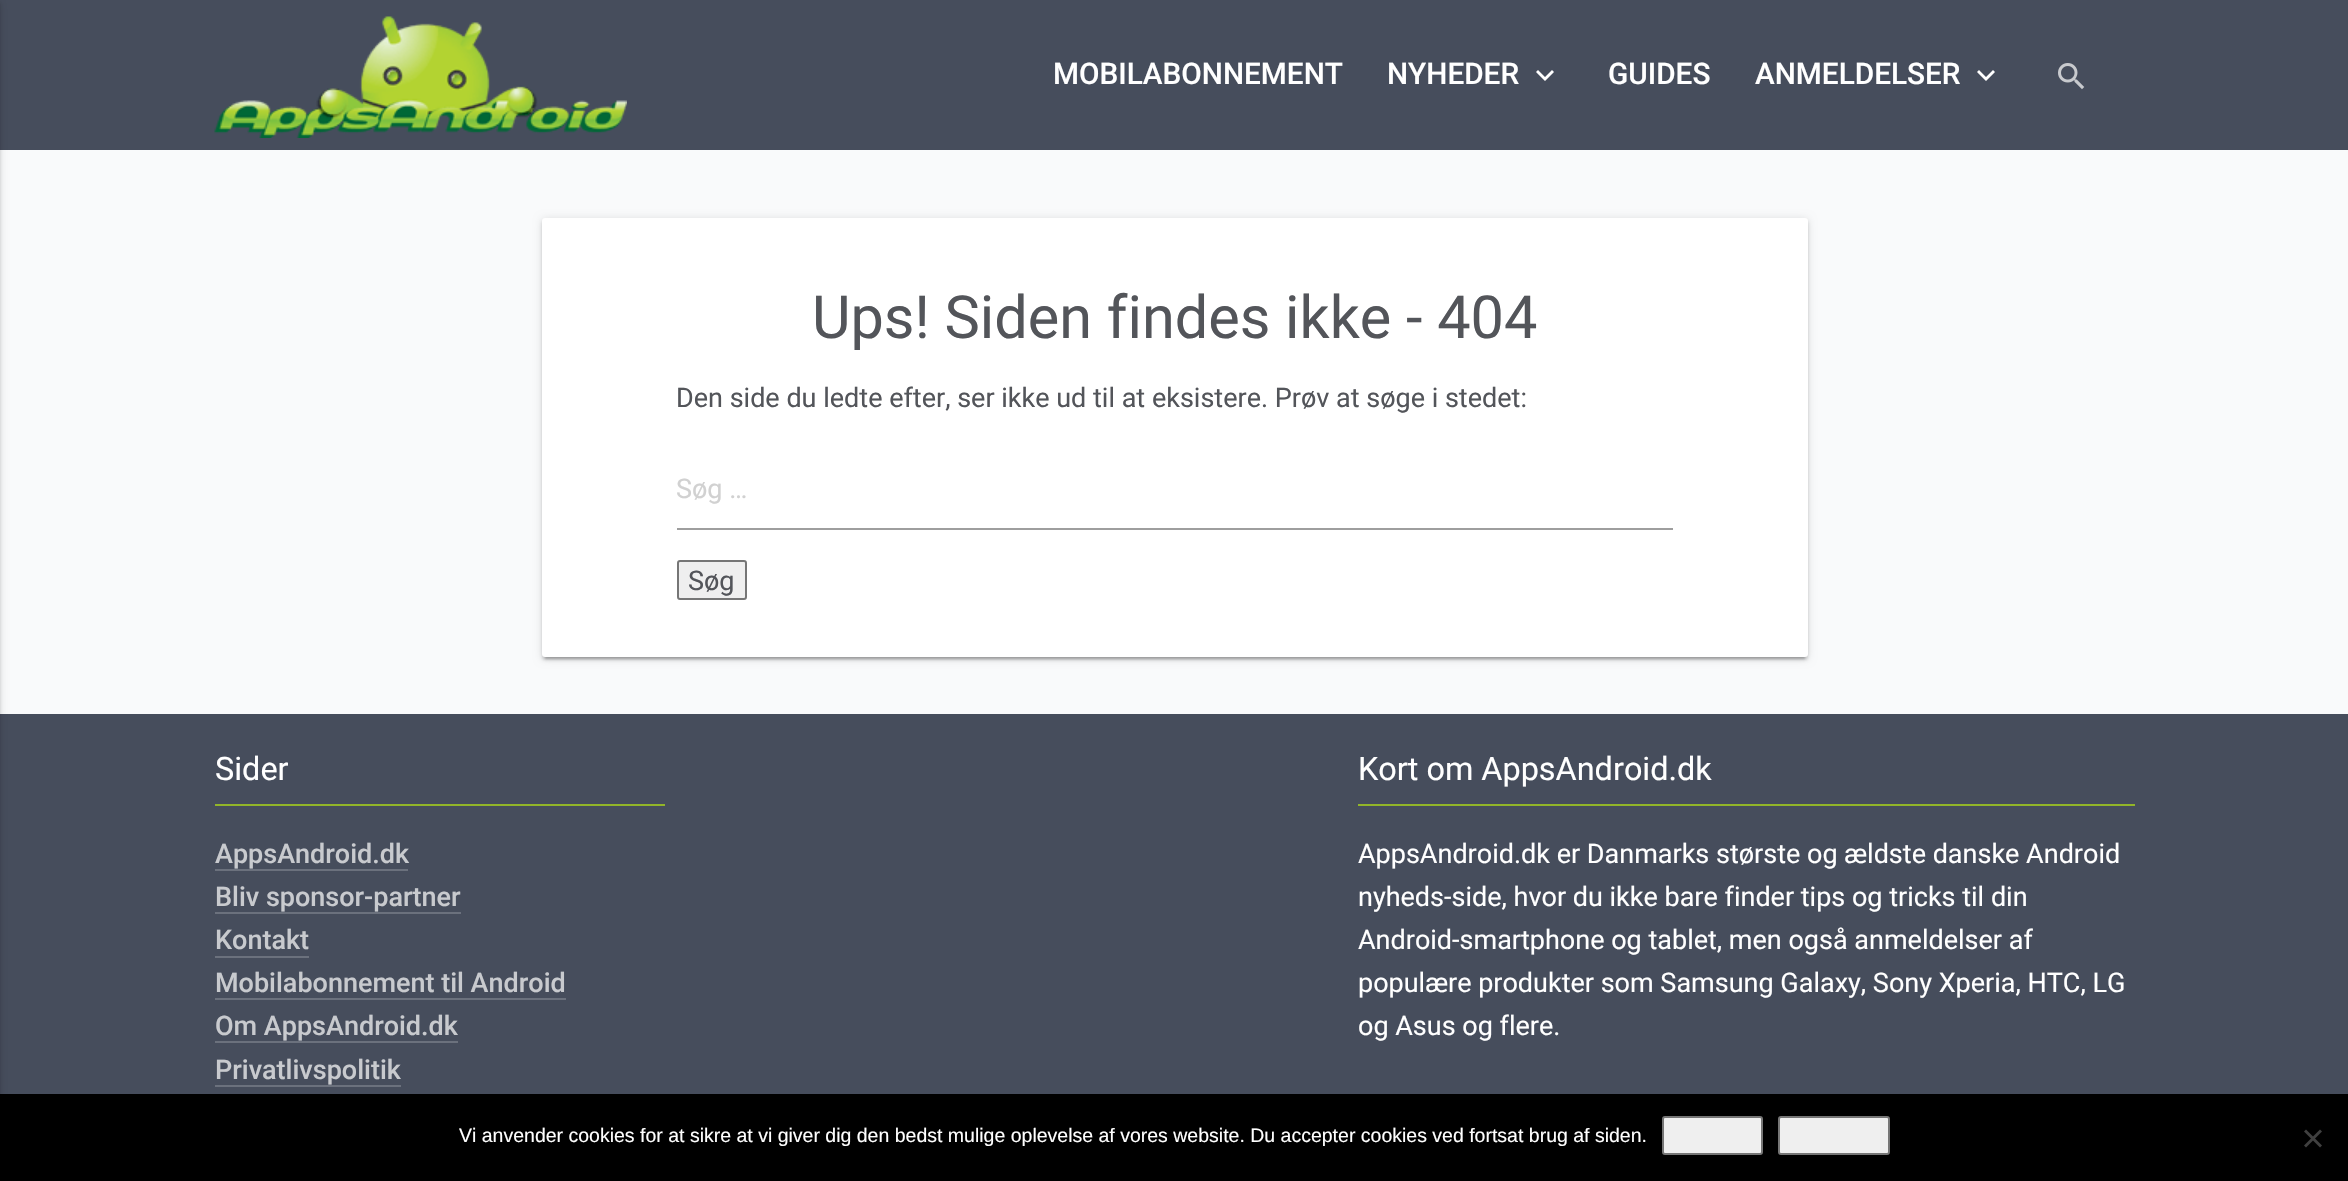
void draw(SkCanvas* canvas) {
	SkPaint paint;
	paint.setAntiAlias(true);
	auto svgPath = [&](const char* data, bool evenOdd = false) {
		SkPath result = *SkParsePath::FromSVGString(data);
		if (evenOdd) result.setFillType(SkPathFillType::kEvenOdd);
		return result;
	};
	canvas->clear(0xfff9fafb);
	paint.setColor(0xff464d5c);
	canvas->drawRect(SkRect::MakeXYWH(0, 0, 2348, 150), paint);
	canvas->drawRect(SkRect::MakeXYWH(0, 714, 2348, 380), paint);
	paint.setColor(0x1f000000);
	paint.setMaskFilter(SkMaskFilter::MakeBlur(kNormal_SkBlurStyle, 4));
	canvas->drawRect(SkRect::MakeXYWH(-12, 2, 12, 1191), paint);
	paint.setMaskFilter(nullptr);
	paint.setColor(0x24000000);
	paint.setMaskFilter(SkMaskFilter::MakeBlur(kNormal_SkBlurStyle, 1.5));
	canvas->drawRect(SkRect::MakeXYWH(-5, 3, 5, 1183), paint);
	paint.setMaskFilter(nullptr);
	canvas->drawImageRect(SkImages::DeferredFromEncodedData(SkData::MakeFromFileName("img1.png")), SkRect::MakeXYWH(214, 16, 413, 122), SkSamplingOptions());
	SkFont f1(fontMgr->matchFamilyStyle("Roboto", SkFontStyle(500, SkFontStyle::kNormal_Width, SkFontStyle::kUpright_Slant)), 29.75);
	f1.setSubpixel(true);
	paint.setColor(0xffffffff);
	canvas->drawString("MOBILABONNEMENT", 1053, 84, f1, paint);
	canvas->drawString("NYHEDER", 1387, 84, f1, paint);
	canvas->drawPath(svgPath("M1538 70L1545 77L1552 70L1554 72L1545 81L1536 72Z"), paint);
	canvas->drawString("GUIDES", 1608, 84, f1, paint);
	canvas->drawString("ANMELDELSER", 1755, 84, f1, paint);
	canvas->drawPath(svgPath("M1979 70L1986 77L1993 70L1995 72L1986 81L1977 72Z"), paint);
	canvas->drawImageRect(SkImages::DeferredFromEncodedData(SkData::MakeFromFileName("img2.png")), SkRect::MakeXYWH(2058, 63, 27, 27), SkSamplingOptions());
	paint.setColor(0x33000000);
	paint.setMaskFilter(SkMaskFilter::MakeBlur(kNormal_SkBlurStyle, 1));
	canvas->drawRect(SkRect::MakeXYWH(545, 225, 1260, 434), paint);
	paint.setMaskFilter(nullptr);
	paint.setColor(0x1f000000);
	paint.setMaskFilter(SkMaskFilter::MakeBlur(kNormal_SkBlurStyle, 4));
	canvas->drawRoundRect(SkRect::MakeXYWH(542, 219, 1266, 440), 3, 3, paint);
	paint.setMaskFilter(nullptr);
	paint.setColor(0x24000000);
	paint.setMaskFilter(SkMaskFilter::MakeBlur(kNormal_SkBlurStyle, 1.5));
	canvas->drawRoundRect(SkRect::MakeXYWH(542, 221, 1266, 439), 3, 3, paint);
	paint.setMaskFilter(nullptr);
	paint.setColor(0xffffffff);
	canvas->drawRoundRect(SkRect::MakeXYWH(542, 218, 1266, 439), 3, 3, paint);
	SkFont f2(fontMgr->matchFamilyStyle("Roboto", SkFontStyle::Normal()), 59.4);
	f2.setSubpixel(true);
	paint.setColor(0xff53555a);
	canvas->drawString("Ups! Siden findes ikke - 404", 812, 338, f2, paint);
	SkFont f3(fontMgr->matchFamilyStyle("Roboto", SkFontStyle::Normal()), 27);
	f3.setSubpixel(true);
	canvas->drawString("Den side du ledte efter, ser ikke ud til at eksistere. Prøv at søge i stedet:", 676, 407, f3, paint);
	paint.setColor(0xff9e9e9e);
	canvas->drawRect(SkRect::MakeXYWH(677, 528, 996, 2), paint);
	paint.setColor(0xffd1d1d1);
	canvas->drawString("Søg …", 676, 498, f3, paint);
	paint.setColor(0xffefefef);
	canvas->drawRoundRect(SkRect::MakeXYWH(678, 561, 68, 38), 2, 2, paint);
	paint.setStroke(true);
	paint.setStrokeWidth(2);
	paint.setColor(0xff767676);
	canvas->drawRoundRect(SkRect::MakeXYWH(678, 561, 68, 38), 2, 2, paint);
	paint.setStroke(false);
	paint.setColor(0xff53555a);
	canvas->drawString("Søg", 688, 590, f3, paint);
	paint.setColor(0xff92b529);
	canvas->drawRect(SkRect::MakeXYWH(215, 804, 450, 2), paint);
	SkFont f4(fontMgr->matchFamilyStyle("Roboto", SkFontStyle::Normal()), 32.4);
	f4.setSubpixel(true);
	paint.setColor(0xffffffff);
	canvas->drawString("Sider", 215, 780, f4, paint);
	SkFont f5(fontMgr->matchFamilyStyle("Roboto", SkFontStyle(500, SkFontStyle::kNormal_Width, SkFontStyle::kUpright_Slant)), 27);
	f5.setSubpixel(true);
	paint.setColor(0xffc8cace);
	canvas->drawString("AppsAndroid.dk", 215, 863, f5, paint);
	paint.setColor(0xff6b717d);
	canvas->drawRect(SkRect::MakeXYWH(215, 869, 193, 2), paint);
	paint.setColor(0xffc8cace);
	canvas->drawString("Bliv sponsor-partner", 215, 906, f5, paint);
	paint.setColor(0xff6b717d);
	canvas->drawRect(SkRect::MakeXYWH(215, 912, 246, 2), paint);
	paint.setColor(0xffc8cace);
	canvas->drawString("Kontakt", 215, 949, f5, paint);
	paint.setColor(0xff6b717d);
	canvas->drawRect(SkRect::MakeXYWH(215, 956, 94, 2), paint);
	paint.setColor(0xffc8cace);
	canvas->drawString("Mobilabonnement til Android", 215, 992, f5, paint);
	paint.setColor(0xff6b717d);
	canvas->drawRect(SkRect::MakeXYWH(215, 998, 351, 2), paint);
	paint.setColor(0xffc8cace);
	canvas->drawString("Om AppsAndroid.dk", 215, 1035, f5, paint);
	paint.setColor(0xff6b717d);
	canvas->drawRect(SkRect::MakeXYWH(215, 1041, 243, 2), paint);
	paint.setColor(0xffc8cace);
	canvas->drawString("Privatlivspolitik", 215, 1079, f5, paint);
	paint.setColor(0xff6b717d);
	canvas->drawRect(SkRect::MakeXYWH(215, 1085, 186, 2), paint);
	paint.setColor(0xff92b529);
	canvas->drawRect(SkRect::MakeXYWH(1358, 804, 777, 2), paint);
	paint.setColor(0xffffffff);
	canvas->drawString("Kort om AppsAndroid.dk", 1358, 780, f4, paint);
	canvas->drawString("AppsAndroid.dk er Danmarks største og ældste danske Android", 1358, 863, f3, paint);
	canvas->drawString("nyheds-side, hvor du ikke bare finder tips og tricks til din", 1358, 906, f3, paint);
	canvas->drawString("Android-smartphone og tablet, men også anmeldelser af", 1358, 949, f3, paint);
	canvas->drawString("populære produkter som Samsung Galaxy, Sony Xperia, HTC, LG", 1358, 992, f3, paint);
	canvas->drawString("og Asus og flere.", 1358, 1035, f3, paint);
	paint.setColor(0xff000000);
	canvas->drawRect(SkRect::MakeXYWH(0, 1094, 2348, 87), paint);
	SkFont f6(fontMgr->matchFamilyStyle("Liberation Sans", SkFontStyle::Normal()), 19.5);
	f6.setSubpixel(true);
	paint.setColor(0xffffffff);
	canvas->drawString("Vi anvender cookies for at sikre at vi giver dig den bedst mulige oplevelse af vores website. Du accepter cookies ved fortsat brug af siden.", 459, 1142, f6, paint);
	paint.setColor(0xffefefef);
	canvas->drawRoundRect(SkRect::MakeXYWH(1663, 1117, 99, 37), 2, 2, paint);
	paint.setStroke(true);
	paint.setColor(0xff767676);
	canvas->drawRoundRect(SkRect::MakeXYWH(1663, 1117, 99, 37), 2, 2, paint);
	paint.setStroke(false);
	paint.setColor(0xffefefef);
	canvas->drawRoundRect(SkRect::MakeXYWH(1779, 1117, 110, 37), 2, 2, paint);
	paint.setStroke(true);
	paint.setColor(0xff767676);
	canvas->drawRoundRect(SkRect::MakeXYWH(1779, 1117, 110, 37), 2, 2, paint);
	paint.setStroke(false);
	paint.setColor(0xff404040);
	canvas->drawPath(svgPath("M2320 1129.5L2322 1131.5L2306 1147.5L2304 1145.5Z"), paint);
	canvas->drawPath(svgPath("M2304 1131.5L2306 1129.5L2322 1145.5L2320 1147.5Z"), paint);
}
